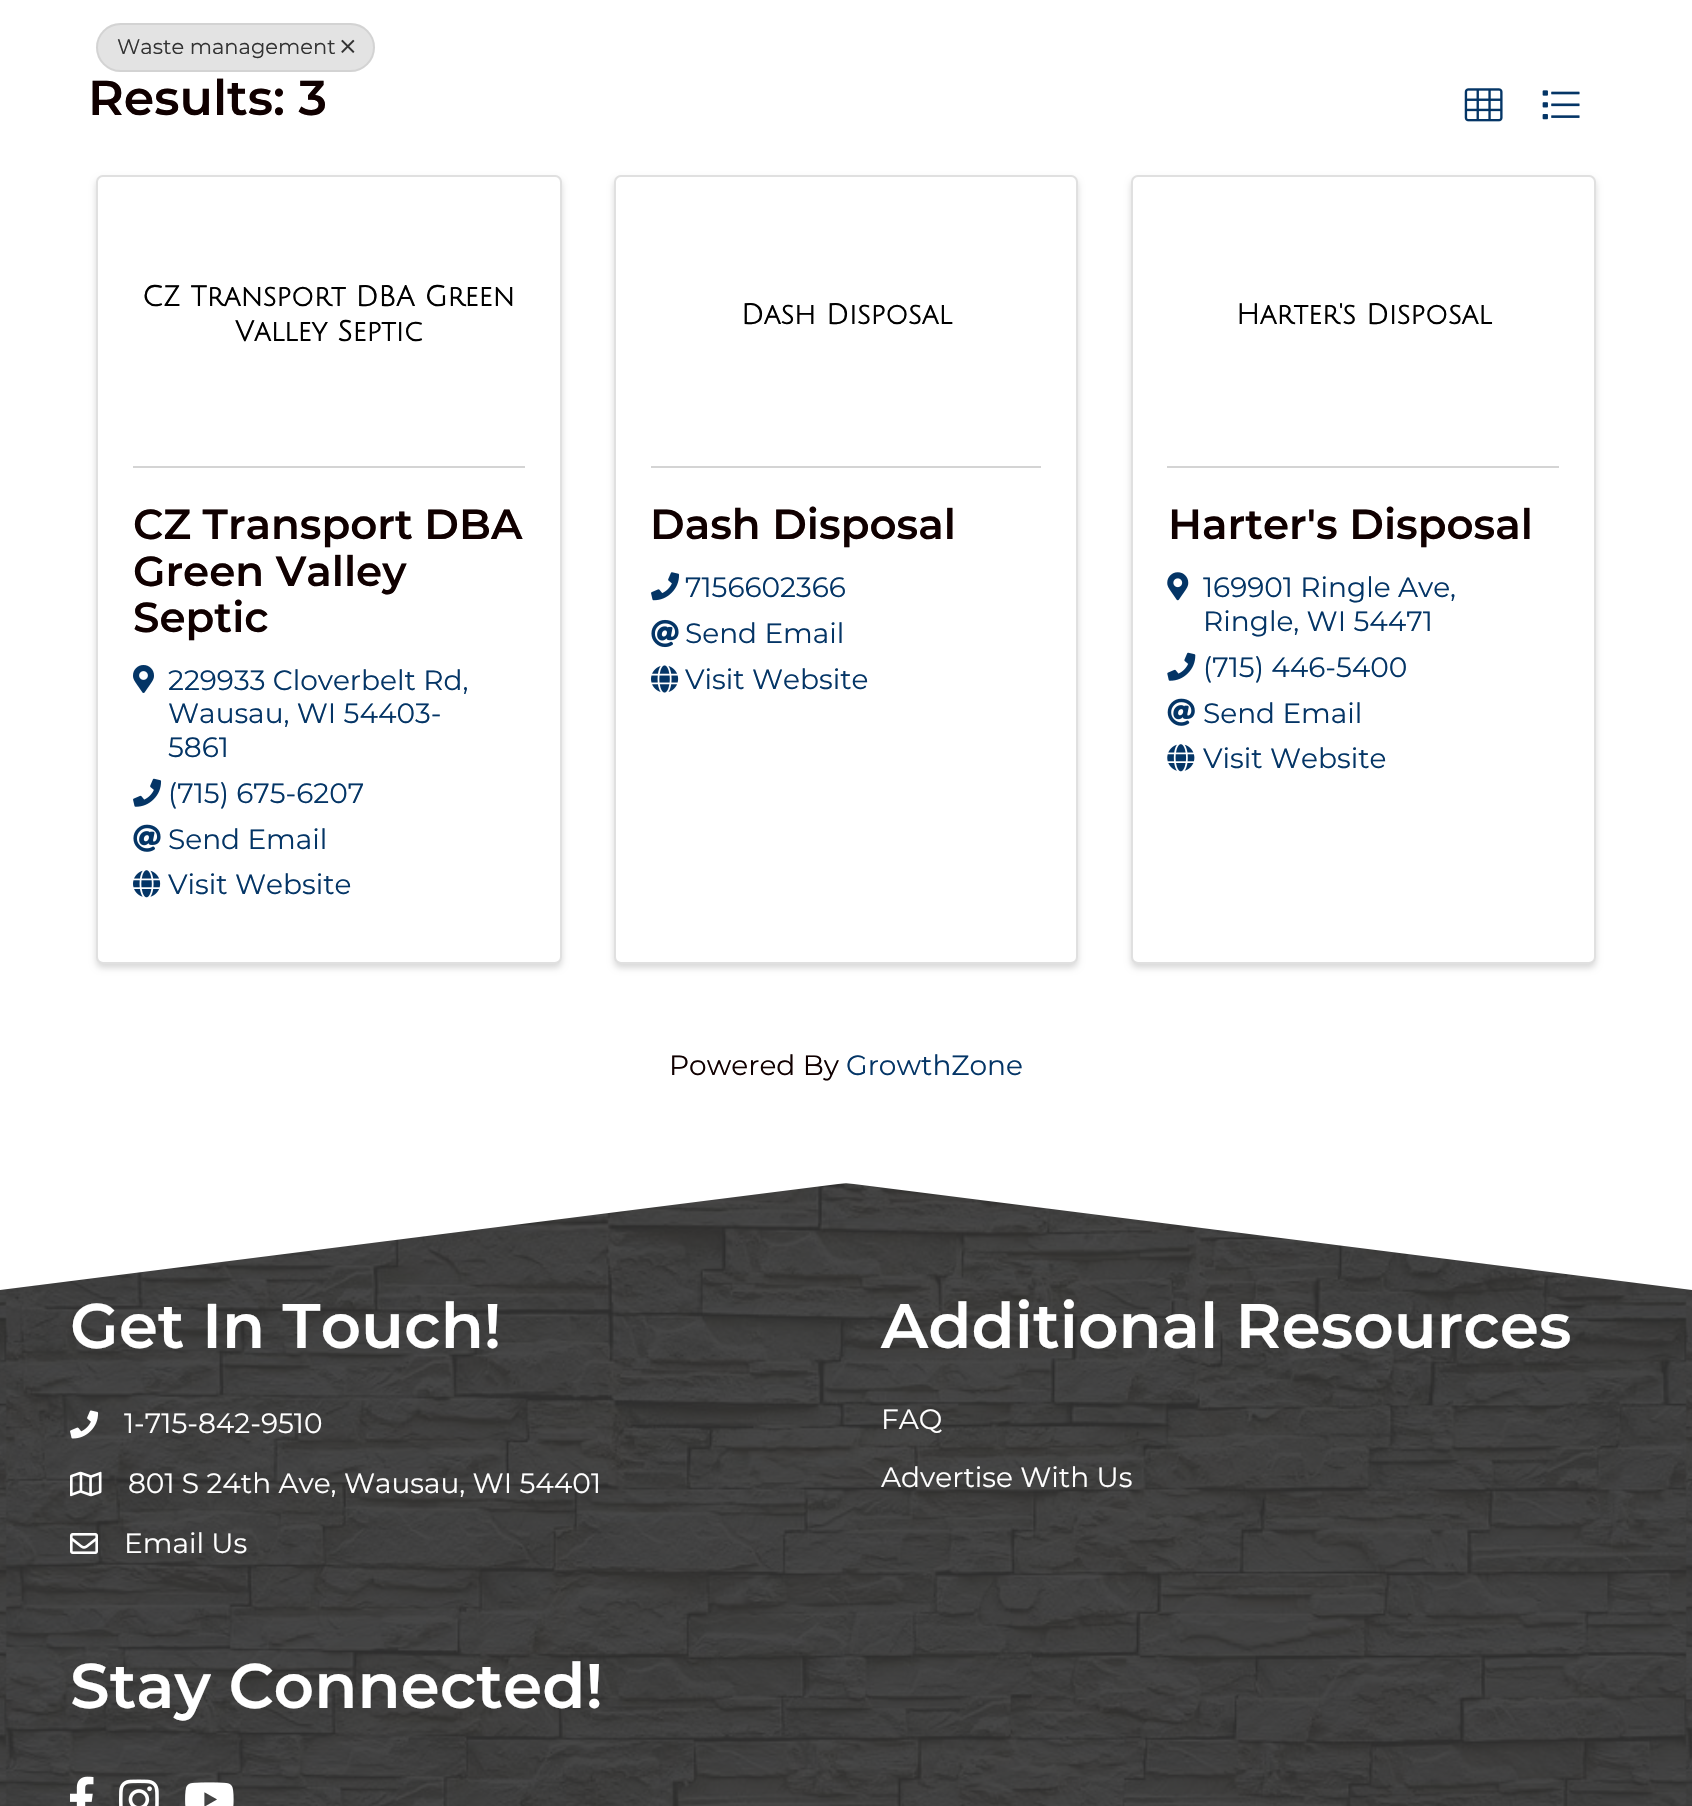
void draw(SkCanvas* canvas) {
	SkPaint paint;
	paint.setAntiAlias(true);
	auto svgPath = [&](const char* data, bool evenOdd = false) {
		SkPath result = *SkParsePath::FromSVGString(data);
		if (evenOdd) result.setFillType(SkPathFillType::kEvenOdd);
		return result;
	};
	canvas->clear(0xffffffff);
	paint.setColor(0xffe3e3e3);
	canvas->drawRoundRect(SkRect::MakeXYWH(96, 23, 279, 49), 24.5, 24.5, paint);
	paint.setStroke(true);
	paint.setStrokeWidth(2);
	paint.setColor(0x12000000);
	canvas->drawRoundRect(SkRect::MakeXYWH(97, 24, 277, 47), 23.5, 23.5, paint);
	SkFont f1(fontMgr->matchFamilyStyle("Montserrat", SkFontStyle::Normal()), 21);
	f1.setSubpixel(true);
	paint.setStroke(false);
	paint.setColor(0xff333333);
	canvas->drawString("Waste management", 117, 54, f1, paint);
	canvas->drawImageRect(SkImages::DeferredFromEncodedData(SkData::MakeFromFileName("img1.png")), SkRect::MakeXYWH(341, 39, 14, 14), SkSamplingOptions());
	SkFont f2(fontMgr->matchFamilyStyle("Montserrat", SkFontStyle(600, SkFontStyle::kNormal_Width, SkFontStyle::kUpright_Slant)), 49);
	f2.setSubpixel(true);
	paint.setColor(0xff100000);
	canvas->drawString("Results: 3", 88, 115, f2, paint);
	canvas->drawImageRect(SkImages::DeferredFromEncodedData(SkData::MakeFromFileName("img2.png")), SkRect::MakeXYWH(1464, 88, 39, 34), SkSamplingOptions());
	canvas->drawImageRect(SkImages::DeferredFromEncodedData(SkData::MakeFromFileName("img3.png")), SkRect::MakeXYWH(1542, 90, 38, 30), SkSamplingOptions());
	paint.setColor(0x26000000);
	paint.setMaskFilter(SkMaskFilter::MakeBlur(kNormal_SkBlurStyle, 3));
	canvas->drawRoundRect(SkRect::MakeXYWH(96, 179, 466, 789), 7, 7, paint);
	paint.setMaskFilter(nullptr);
	paint.setColor(0xffffffff);
	canvas->drawRoundRect(SkRect::MakeXYWH(96, 175, 466, 789), 7, 7, paint);
	paint.setStroke(true);
	paint.setColor(0x1f000000);
	canvas->drawRoundRect(SkRect::MakeXYWH(97, 176, 464, 787), 6, 6, paint);
	SkFont f3(fontMgr->matchFamilyStyle("Julius Sans One", SkFontStyle::Bold()), 28);
	f3.setSubpixel(true);
	paint.setStroke(false);
	paint.setColor(0xff000000);
	canvas->drawString("CZ Transport DBA Green", 142, 306, f3, paint);
	canvas->drawString("Valley Septic", 235, 341, f3, paint);
	paint.setColor(0xffd4d4d4);
	canvas->drawRect(SkRect::MakeXYWH(133, 466, 392, 2), paint);
	SkFont f4(fontMgr->matchFamilyStyle("Montserrat", SkFontStyle(600, SkFontStyle::kNormal_Width, SkFontStyle::kUpright_Slant)), 42);
	f4.setSubpixel(true);
	paint.setColor(0xff100000);
	canvas->drawString("CZ Transport DBA", 133, 539, f4, paint);
	canvas->drawString("Green Valley", 133, 586, f4, paint);
	canvas->drawString("Septic", 133, 632, f4, paint);
	canvas->drawImageRect(SkImages::DeferredFromEncodedData(SkData::MakeFromFileName("img4.png")), SkRect::MakeXYWH(133, 665, 21, 28), SkSamplingOptions());
	SkFont f5(fontMgr->matchFamilyStyle("Montserrat", SkFontStyle::Normal()), 28);
	f5.setSubpixel(true);
	paint.setColor(0xff043566);
	canvas->drawString("229933 Cloverbelt Rd,", 168, 690, f5, paint);
	canvas->drawString("Wausau, WI 54403-", 168, 723, f5, paint);
	canvas->drawString("5861", 168, 757, f5, paint);
	canvas->drawImageRect(SkImages::DeferredFromEncodedData(SkData::MakeFromFileName("img5.png")), SkRect::MakeXYWH(133, 778, 29, 29), SkSamplingOptions());
	canvas->drawString("(715) 675-6207", 168, 803, f5, paint);
	canvas->drawImageRect(SkImages::DeferredFromEncodedData(SkData::MakeFromFileName("img6.png")), SkRect::MakeXYWH(133, 824, 28, 28), SkSamplingOptions());
	canvas->drawString("Send Email", 168, 849, f5, paint);
	canvas->drawImageRect(SkImages::DeferredFromEncodedData(SkData::MakeFromFileName("img7.png")), SkRect::MakeXYWH(133, 870, 28, 28), SkSamplingOptions());
	canvas->drawString("Visit Website", 168, 894, f5, paint);
	paint.setColor(0x26000000);
	paint.setMaskFilter(SkMaskFilter::MakeBlur(kNormal_SkBlurStyle, 3));
	canvas->drawRoundRect(SkRect::MakeXYWH(614, 179, 464, 789), 7, 7, paint);
	paint.setMaskFilter(nullptr);
	paint.setColor(0xffffffff);
	canvas->drawRoundRect(SkRect::MakeXYWH(614, 175, 464, 789), 7, 7, paint);
	paint.setStroke(true);
	paint.setColor(0x1f000000);
	canvas->drawRoundRect(SkRect::MakeXYWH(615, 176, 462, 787), 6, 6, paint);
	paint.setStroke(false);
	paint.setColor(0xff000000);
	canvas->drawString("Dash Disposal", 741, 324, f3, paint);
	paint.setColor(0xffd4d4d4);
	canvas->drawRect(SkRect::MakeXYWH(651, 466, 390, 2), paint);
	paint.setColor(0xff100000);
	canvas->drawString("Dash Disposal", 650, 539, f4, paint);
	canvas->drawImageRect(SkImages::DeferredFromEncodedData(SkData::MakeFromFileName("img8.png")), SkRect::MakeXYWH(651, 572, 29, 29), SkSamplingOptions());
	paint.setColor(0xff043566);
	canvas->drawString("7156602366", 685, 597, f5, paint);
	canvas->drawImageRect(SkImages::DeferredFromEncodedData(SkData::MakeFromFileName("img9.png")), SkRect::MakeXYWH(651, 619, 28, 29), SkSamplingOptions());
	canvas->drawString("Send Email", 685, 643, f5, paint);
	canvas->drawImageRect(SkImages::DeferredFromEncodedData(SkData::MakeFromFileName("img10.png")), SkRect::MakeXYWH(651, 665, 28, 28), SkSamplingOptions());
	canvas->drawString("Visit Website", 685, 689, f5, paint);
	paint.setColor(0x26000000);
	paint.setMaskFilter(SkMaskFilter::MakeBlur(kNormal_SkBlurStyle, 3));
	canvas->drawRoundRect(SkRect::MakeXYWH(1131, 179, 465, 789), 7, 7, paint);
	paint.setMaskFilter(nullptr);
	paint.setColor(0xffffffff);
	canvas->drawRoundRect(SkRect::MakeXYWH(1131, 175, 465, 789), 7, 7, paint);
	paint.setStroke(true);
	paint.setColor(0x1f000000);
	canvas->drawRoundRect(SkRect::MakeXYWH(1132, 176, 463, 787), 6, 6, paint);
	paint.setStroke(false);
	paint.setColor(0xff000000);
	canvas->drawString("Harter's Disposal", 1236, 324, f3, paint);
	paint.setColor(0xffd4d4d4);
	canvas->drawRect(SkRect::MakeXYWH(1167, 466, 392, 2), paint);
	paint.setColor(0xff100000);
	canvas->drawString("Harter's Disposal", 1168, 539, f4, paint);
	canvas->drawImageRect(SkImages::DeferredFromEncodedData(SkData::MakeFromFileName("img11.png")), SkRect::MakeXYWH(1167, 572, 22, 29), SkSamplingOptions());
	paint.setColor(0xff043566);
	canvas->drawString("169901 Ringle Ave,", 1203, 597, f5, paint);
	canvas->drawString("Ringle, WI 54471", 1203, 631, f5, paint);
	canvas->drawImageRect(SkImages::DeferredFromEncodedData(SkData::MakeFromFileName("img12.png")), SkRect::MakeXYWH(1167, 652, 29, 29), SkSamplingOptions());
	canvas->drawString("(715) 446-5400", 1203, 677, f5, paint);
	canvas->drawImageRect(SkImages::DeferredFromEncodedData(SkData::MakeFromFileName("img13.png")), SkRect::MakeXYWH(1167, 698, 28, 28), SkSamplingOptions());
	canvas->drawString("Send Email", 1203, 723, f5, paint);
	canvas->drawImageRect(SkImages::DeferredFromEncodedData(SkData::MakeFromFileName("img14.png")), SkRect::MakeXYWH(1167, 744, 28, 28), SkSamplingOptions());
	canvas->drawString("Visit Website", 1203, 768, f5, paint);
	paint.setColor(0xff100000);
	canvas->drawString("Powered By", 669, 1075, f5, paint);
	paint.setColor(0xff043566);
	canvas->drawString("GrowthZone", 846, 1075, f5, paint);
	canvas->drawImageRect(SkImages::DeferredFromEncodedData(SkData::MakeFromFileName("img15.png")), SkRect::MakeXYWH(0, 1183, 1692, 623), SkSamplingOptions());
	paint.setColor(0xffffffff);
	canvas->drawPath(svgPath("M0 1183H1692V1290L846 1183L0 1290Z"), paint);
	SkFont f6(fontMgr->matchFamilyStyle("Montserrat", SkFontStyle(600, SkFontStyle::kNormal_Width, SkFontStyle::kUpright_Slant)), 63);
	f6.setSubpixel(true);
	canvas->drawString("Get In Touch!", 70, 1348, f6, paint);
	canvas->drawImageRect(SkImages::DeferredFromEncodedData(SkData::MakeFromFileName("img16.png")), SkRect::MakeXYWH(70, 1410, 29, 29), SkSamplingOptions());
	canvas->drawString("1-715-842-9510", 124, 1433, f5, paint);
	canvas->drawImageRect(SkImages::DeferredFromEncodedData(SkData::MakeFromFileName("img17.png")), SkRect::MakeXYWH(70, 1471, 32, 26), SkSamplingOptions());
	canvas->drawString("801 S 24th Ave, Wausau, WI 54401", 128, 1493, f5, paint);
	canvas->drawImageRect(SkImages::DeferredFromEncodedData(SkData::MakeFromFileName("img18.png")), SkRect::MakeXYWH(70, 1533, 28, 21), SkSamplingOptions());
	canvas->drawString("Email Us", 124, 1553, f5, paint);
	canvas->drawString("Additional Resources", 881, 1348, f6, paint);
	canvas->drawString("FAQ", 881, 1429, f5, paint);
	canvas->drawString("Advertise With Us", 881, 1487, f5, paint);
	canvas->drawString("Stay Connected!", 70, 1708, f6, paint);
	canvas->drawImageRect(SkImages::DeferredFromEncodedData(SkData::MakeFromFileName("img19.png")), SkRect::MakeXYWH(70, 1776, 24, 30), SkSamplingOptions());
	canvas->drawImageRect(SkImages::DeferredFromEncodedData(SkData::MakeFromFileName("img20.png")), SkRect::MakeXYWH(119, 1779, 40, 27), SkSamplingOptions());
	canvas->drawImageRect(SkImages::DeferredFromEncodedData(SkData::MakeFromFileName("img21.png")), SkRect::MakeXYWH(185, 1782, 49, 24), SkSamplingOptions());
}
